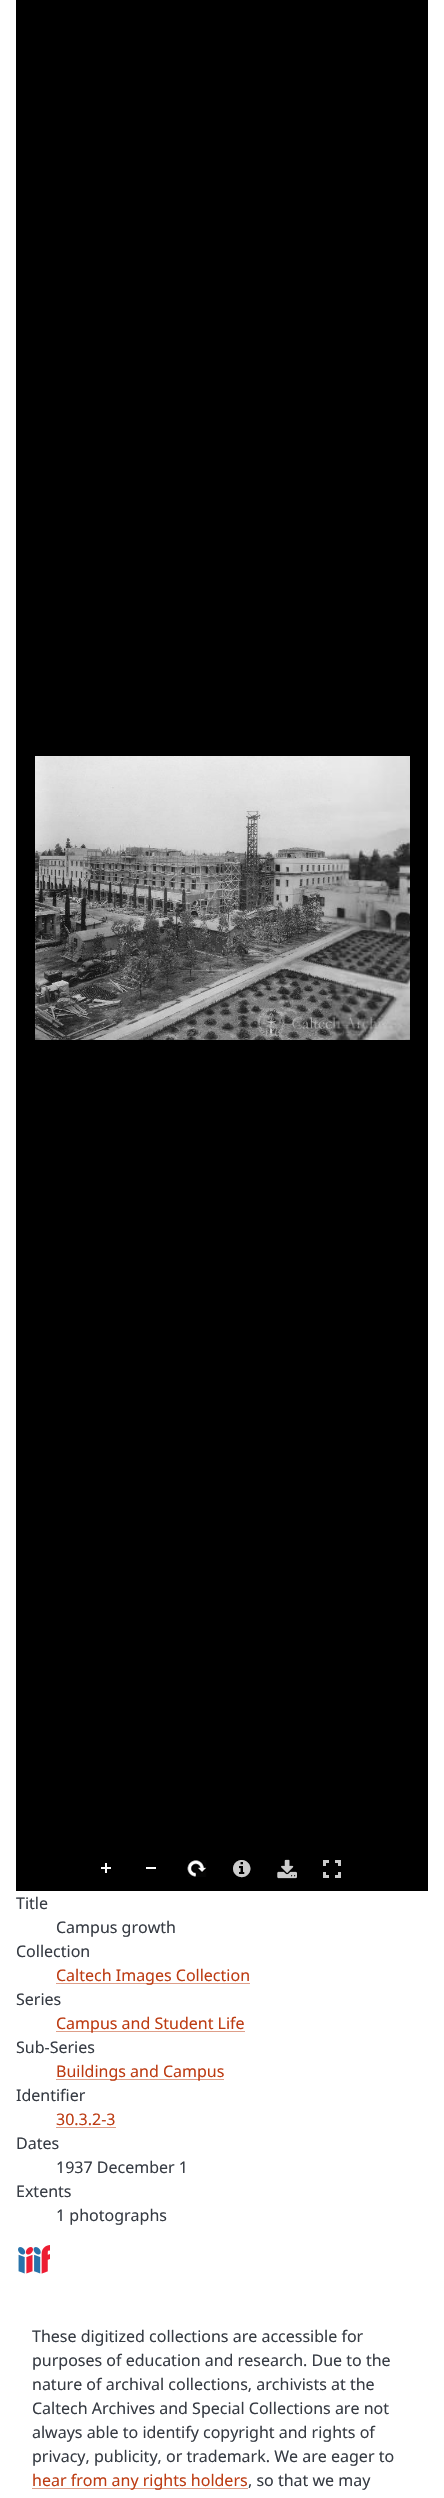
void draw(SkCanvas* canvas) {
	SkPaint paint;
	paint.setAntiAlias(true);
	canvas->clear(0xffffffff);
	paint.setColor(0xff000000);
	canvas->drawRect(SkRect::MakeXYWH(16, 0, 412, 1891), paint);
	canvas->drawImageRect(SkImages::DeferredFromEncodedData(SkData::MakeFromFileName("img1.png")), SkRect::MakeXYWH(35, 756, 375, 284), SkSamplingOptions());
	canvas->drawImageRect(SkImages::DeferredFromEncodedData(SkData::MakeFromFileName("img2.png")), SkRect::MakeXYWH(101, 1863, 10, 10), SkSamplingOptions());
	paint.setColor(0xffffffff);
	canvas->drawRect(SkRect::MakeXYWH(146, 1867, 10, 2), paint);
	canvas->drawImageRect(SkImages::DeferredFromEncodedData(SkData::MakeFromFileName("img3.png")), SkRect::MakeXYWH(187, 1860, 20, 17), SkSamplingOptions());
	canvas->drawImageRect(SkImages::DeferredFromEncodedData(SkData::MakeFromFileName("img4.png")), SkRect::MakeXYWH(233, 1860, 18, 18), SkSamplingOptions());
	canvas->drawImageRect(SkImages::DeferredFromEncodedData(SkData::MakeFromFileName("img5.png")), SkRect::MakeXYWH(277, 1859, 20, 20), SkSamplingOptions());
	canvas->drawImageRect(SkImages::DeferredFromEncodedData(SkData::MakeFromFileName("img6.png")), SkRect::MakeXYWH(323, 1860, 18, 18), SkSamplingOptions());
	SkFont f1(fontMgr->matchFamilyStyle("Noto Sans", SkFontStyle::Normal()), 16);
	f1.setSubpixel(true);
	paint.setColor(0xff373c44);
	canvas->drawString("Title", 16, 1909, f1, paint);
	canvas->drawString("Campus growth", 56, 1933, f1, paint);
	canvas->drawString("Collection", 16, 1957, f1, paint);
	paint.setColor(0xffde9e89);
	canvas->drawRect(SkRect::MakeXYWH(56, 1983, 194, 1), paint);
	paint.setColor(0xffbd3c13);
	canvas->drawString("Caltech Images Collection", 56, 1981, f1, paint);
	paint.setColor(0xff373c44);
	canvas->drawString("Series", 16, 2005, f1, paint);
	paint.setColor(0xffde9e89);
	canvas->drawRect(SkRect::MakeXYWH(56, 2031, 189, 1), paint);
	paint.setColor(0xffbd3c13);
	canvas->drawString("Campus and Student Life", 56, 2029, f1, paint);
	paint.setColor(0xff373c44);
	canvas->drawString("Sub-Series", 16, 2053, f1, paint);
	paint.setColor(0xffde9e89);
	canvas->drawRect(SkRect::MakeXYWH(56, 2079, 168, 1), paint);
	paint.setColor(0xffbd3c13);
	canvas->drawString("Buildings and Campus", 56, 2077, f1, paint);
	paint.setColor(0xff373c44);
	canvas->drawString("Identifier", 16, 2101, f1, paint);
	paint.setColor(0xffbd3c13);
	canvas->drawString("30.3.2-3", 56, 2125, f1, paint);
	paint.setColor(0xffde9e89);
	canvas->drawRect(SkRect::MakeXYWH(56, 2127, 60, 1), paint);
	paint.setColor(0xff373c44);
	canvas->drawString("Dates", 16, 2149, f1, paint);
	canvas->drawString("1937 December 1", 56, 2173, f1, paint);
	canvas->drawString("Extents", 16, 2197, f1, paint);
	canvas->drawString("1 photographs", 56, 2221, f1, paint);
	canvas->drawImageRect(SkImages::DeferredFromEncodedData(SkData::MakeFromFileName("img7.png")), SkRect::MakeXYWH(18, 2245, 32, 29), SkSamplingOptions());
	canvas->drawString("These digitized collections are accessible for", 32, 2342, f1, paint);
	canvas->drawString("purposes of education and research. Due to the", 32, 2366, f1, paint);
	canvas->drawString("nature of archival collections, archivists at the", 32, 2390, f1, paint);
	canvas->drawString("Caltech Archives and Special Collections are not", 32, 2414, f1, paint);
	canvas->drawString("always able to identify copyright and rights of", 32, 2438, f1, paint);
	canvas->drawString("privacy, publicity, or trademark. We are eager to", 32, 2462, f1, paint);
	paint.setColor(0xffde9e89);
	canvas->drawRect(SkRect::MakeXYWH(32, 2488, 216, 1), paint);
	paint.setColor(0xffbd3c13);
	canvas->drawString("hear from any rights holders", 32, 2486, f1, paint);
	paint.setColor(0xff373c44);
	canvas->drawString(", so that we may", 248, 2486, f1, paint);
}
